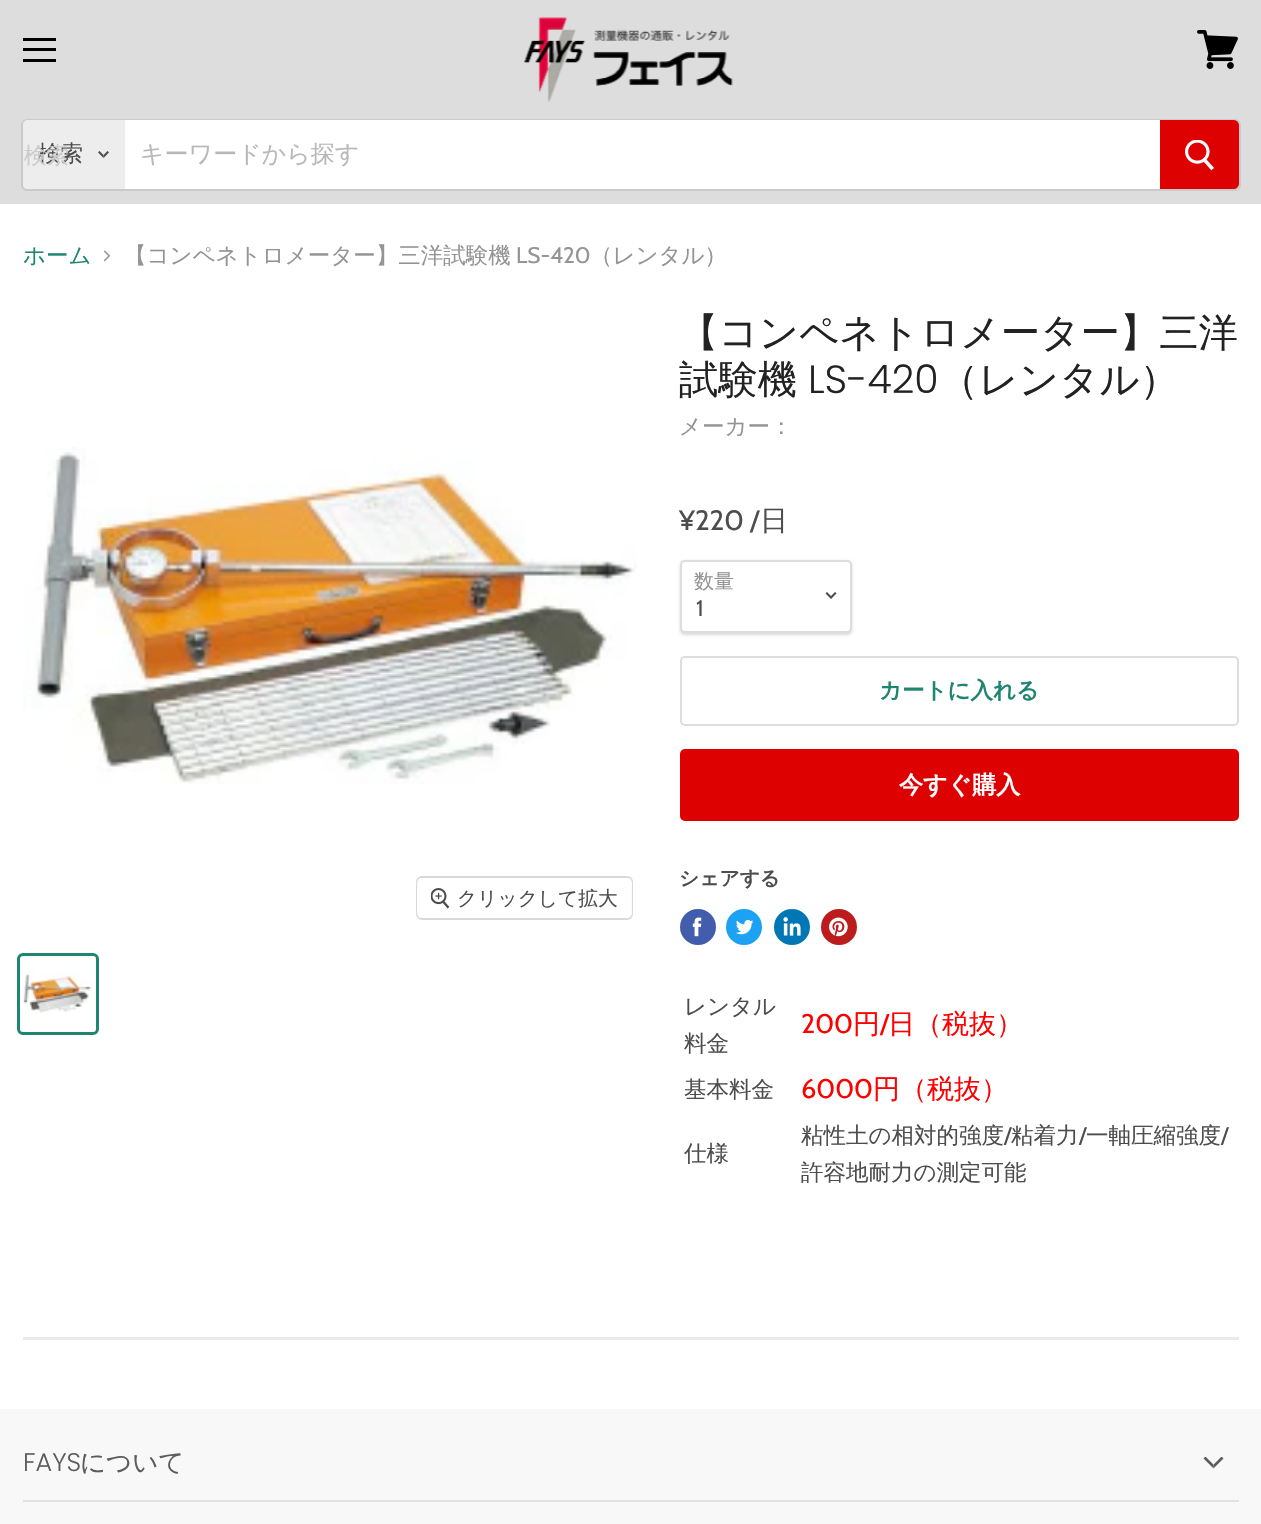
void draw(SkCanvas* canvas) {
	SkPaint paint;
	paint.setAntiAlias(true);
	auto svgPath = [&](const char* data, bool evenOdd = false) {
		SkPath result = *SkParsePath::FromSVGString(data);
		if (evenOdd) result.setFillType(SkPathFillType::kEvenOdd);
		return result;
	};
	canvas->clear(0xffffffff);
	paint.setColor(0xffdddddd);
	canvas->drawRect(SkRect::MakeXYWH(0, 0, 1261, 204), paint);
	paint.setColor(0xff000000);
	canvas->drawRect(SkRect::MakeXYWH(23, 38, 33, 3), paint);
	canvas->drawRect(SkRect::MakeXYWH(23, 48, 33, 3), paint);
	canvas->drawRect(SkRect::MakeXYWH(23, 59, 33, 3), paint);
	canvas->drawImageRect(SkImages::DeferredFromEncodedData(SkData::MakeFromFileName("img1.png")), SkRect::MakeXYWH(1197, 30, 41, 39), SkSamplingOptions());
	canvas->drawImageRect(SkImages::DeferredFromEncodedData(SkData::MakeFromFileName("img2.png")), SkRect::MakeXYWH(524, 17, 209, 85), SkSamplingOptions());
	paint.setStroke(true);
	paint.setStrokeWidth(2);
	paint.setColor(0x337f7f7f);
	canvas->drawRoundRect(SkRect::MakeXYWH(22, 120, 1218, 70), 5, 5, paint);
	paint.setStroke(false);
	paint.setColor(0xffededed);
	canvas->drawPath(svgPath("M28 120H125V189H28C25 189 23 187 23 184V125C23 122 25 120 28 120Z"), paint);
	SkFont f1(fontMgr->matchFamilyStyle("WenQuanYi Zen Hei", SkFontStyle(500, SkFontStyle::kNormal_Width, SkFontStyle::kUpright_Slant)), 22.5);
	f1.setSubpixel(true);
	paint.setColor(0xff4d4d4d);
	canvas->drawString("検索", 38, 161, f1, paint);
	paint.setColor(0xffcbcbcb);
	canvas->drawString("検索", 24, 163, f1, paint);
	canvas->drawImageRect(SkImages::DeferredFromEncodedData(SkData::MakeFromFileName("img3.png")), SkRect::MakeXYWH(98, 151, 11, 7), SkSamplingOptions());
	paint.setColor(0xffffffff);
	canvas->drawRect(SkRect::MakeXYWH(125, 120, 1035, 69), paint);
	SkFont f2(fontMgr->matchFamilyStyle("WenQuanYi Zen Hei", SkFontStyle(500, SkFontStyle::kNormal_Width, SkFontStyle::kUpright_Slant)), 24);
	f2.setSubpixel(true);
	paint.setColor(0xffb8b8b8);
	canvas->drawString("キーワードから探す", 140, 162, f2, paint);
	paint.setColor(0xffde0101);
	canvas->drawPath(svgPath("M1161 121H1234C1236 121 1238 123 1238 125V184C1238 186 1236 188 1234 188H1161Z"), paint);
	paint.setStroke(true);
	canvas->drawPath(svgPath("M1161 121H1234C1236 121 1238 123 1238 125V184C1238 186 1236 188 1234 188H1161Z"), paint);
	canvas->drawImageRect(SkImages::DeferredFromEncodedData(SkData::MakeFromFileName("img4.png")), SkRect::MakeXYWH(1185, 140, 29, 31), SkSamplingOptions());
	paint.setStroke(false);
	paint.setColor(0xff1e8570);
	canvas->drawString("ホーム", 23, 263, f1, paint);
	canvas->drawImageRect(SkImages::DeferredFromEncodedData(SkData::MakeFromFileName("img5.png")), SkRect::MakeXYWH(104, 250, 7, 12), SkSamplingOptions());
	paint.setColor(0xff949494);
	canvas->drawString("【コンペネトロメーター】三洋試験機", 124, 263, f1, paint);
	SkFont f3(fontMgr->matchFamilyStyle("Cabin", SkFontStyle::Normal()), 22.5);
	f3.setSubpixel(true);
	canvas->drawString("LS-420", 516, 263, f3, paint);
	canvas->drawString("（レンタル）", 590, 263, f1, paint);
	canvas->drawImageRect(SkImages::DeferredFromEncodedData(SkData::MakeFromFileName("img6.png")), SkRect::MakeXYWH(23, 447, 614, 337), SkSamplingOptions());
	paint.setStroke(true);
	paint.setColor(0xffd9d9d9);
	canvas->drawRoundRect(SkRect::MakeXYWH(417, 877, 215, 42), 5, 5, paint);
	paint.setStroke(false);
	paint.setColor(0xe6ffffff);
	canvas->drawRoundRect(SkRect::MakeXYWH(417, 878, 215, 40), 5, 5, paint);
	canvas->drawImageRect(SkImages::DeferredFromEncodedData(SkData::MakeFromFileName("img7.png")), SkRect::MakeXYWH(431, 888, 19, 21), SkSamplingOptions());
	SkFont f4(fontMgr->matchFamilyStyle("WenQuanYi Zen Hei", SkFontStyle(500, SkFontStyle::kNormal_Width, SkFontStyle::kUpright_Slant)), 19.75);
	f4.setSubpixel(true);
	paint.setColor(0xff4d4d4d);
	canvas->drawString("クリックして拡大", 457, 905, f4, paint);
	paint.setStroke(true);
	paint.setStrokeWidth(3);
	paint.setColor(0xff1e8570);
	canvas->drawRoundRect(SkRect::MakeXYWH(18.5, 954.5, 79, 79), 4.5, 4.5, paint);
	canvas->drawImageRect(SkImages::DeferredFromEncodedData(SkData::MakeFromFileName("img8.png")), SkRect::MakeXYWH(22, 971, 71, 42), SkSamplingOptions());
	SkFont f5(fontMgr->matchFamilyStyle("WenQuanYi Zen Hei", SkFontStyle(500, SkFontStyle::kNormal_Width, SkFontStyle::kUpright_Slant)), 39.4);
	f5.setSubpixel(true);
	paint.setStroke(false);
	paint.setColor(0xff222222);
	canvas->drawString("【コンペネトロメーター】三洋", 679, 346, f5, paint);
	canvas->drawString("試験機", 679, 393, f5, paint);
	SkFont f6(fontMgr->matchFamilyStyle("Poppins", SkFontStyle(300, SkFontStyle::kNormal_Width, SkFontStyle::kUpright_Slant)), 39.4);
	f6.setSubpixel(true);
	canvas->drawString("LS-420", 808, 393, f6, paint);
	canvas->drawString("（レンタル）", 939, 393, f5, paint);
	paint.setColor(0xff949494);
	canvas->drawString("メーカー：", 679, 434, f1, paint);
	SkFont f7(fontMgr->matchFamilyStyle("Cabin", SkFontStyle::Normal()), 28);
	f7.setSubpixel(true);
	paint.setColor(0xff4d4d4d);
	canvas->drawString("¥220 /", 679, 530, f7, paint);
	SkFont f8(fontMgr->matchFamilyStyle("WenQuanYi Zen Hei", SkFontStyle(500, SkFontStyle::kNormal_Width, SkFontStyle::kUpright_Slant)), 28);
	f8.setSubpixel(true);
	canvas->drawString("日", 760, 530, f8, paint);
	paint.setColor(0x26000000);
	paint.setMaskFilter(SkMaskFilter::MakeBlur(kNormal_SkBlurStyle, 1.5));
	canvas->drawRoundRect(SkRect::MakeXYWH(680, 561, 172, 74), 5, 5, paint);
	paint.setMaskFilter(nullptr);
	paint.setColor(0xffffffff);
	canvas->drawRoundRect(SkRect::MakeXYWH(681, 561, 170, 71), 4, 4, paint);
	paint.setStroke(true);
	paint.setStrokeWidth(2);
	paint.setColor(0xffdddddd);
	canvas->drawRoundRect(SkRect::MakeXYWH(681, 561, 170, 71), 4, 4, paint);
	SkFont f9(fontMgr->matchFamilyStyle("WenQuanYi Zen Hei", SkFontStyle(500, SkFontStyle::kNormal_Width, SkFontStyle::kUpright_Slant)), 20);
	f9.setSubpixel(true);
	paint.setStroke(false);
	paint.setColor(0xff949494);
	canvas->drawString("数量", 694, 588, f9, paint);
	canvas->drawImageRect(SkImages::DeferredFromEncodedData(SkData::MakeFromFileName("img9.png")), SkRect::MakeXYWH(825, 592, 12, 7), SkSamplingOptions());
	paint.setColor(0xff4d4d4d);
	canvas->drawString("1", 696, 616, f3, paint);
	paint.setStroke(true);
	paint.setColor(0xffdddddd);
	canvas->drawRoundRect(SkRect::MakeXYWH(681, 657, 557, 68), 4, 4, paint);
	SkFont f10(fontMgr->matchFamilyStyle("WenQuanYi Zen Hei", SkFontStyle::Bold()), 22.5);
	f10.setSubpixel(true);
	paint.setStroke(false);
	paint.setColor(0xff1e8570);
	canvas->drawString("カートに入れる", 879, 698, f10, paint);
	paint.setColor(0xffde0101);
	canvas->drawRoundRect(SkRect::MakeXYWH(681, 750, 557, 70), 4, 4, paint);
	paint.setStroke(true);
	canvas->drawRoundRect(SkRect::MakeXYWH(681, 750, 557, 70), 4, 4, paint);
	SkFont f11(fontMgr->matchFamilyStyle("WenQuanYi Zen Hei", SkFontStyle::Bold()), 24);
	f11.setSubpixel(true);
	paint.setStroke(false);
	paint.setColor(0xffffffff);
	canvas->drawString("今すぐ購入", 899, 793, f11, paint);
	SkFont f12(fontMgr->matchFamilyStyle("WenQuanYi Zen Hei", SkFontStyle::Bold()), 19.75);
	f12.setSubpixel(true);
	paint.setColor(0xff4d4d4d);
	canvas->drawString("シェアする", 679, 885, f12, paint);
	paint.setColor(0xff425dab);
	canvas->drawCircle(698, 927, 18, paint);
	canvas->drawImageRect(SkImages::DeferredFromEncodedData(SkData::MakeFromFileName("img10.png")), SkRect::MakeXYWH(692, 917, 10, 20), SkSamplingOptions());
	paint.setColor(0xff1da1f2);
	canvas->drawCircle(744, 927, 18, paint);
	canvas->drawImageRect(SkImages::DeferredFromEncodedData(SkData::MakeFromFileName("img11.png")), SkRect::MakeXYWH(736, 919, 18, 16), SkSamplingOptions());
	paint.setColor(0xff0077b5);
	canvas->drawCircle(792, 927, 18, paint);
	canvas->drawImageRect(SkImages::DeferredFromEncodedData(SkData::MakeFromFileName("img12.png")), SkRect::MakeXYWH(783, 917, 18, 19), SkSamplingOptions());
	paint.setColor(0xffbd1c1c);
	canvas->drawCircle(839, 927, 18, paint);
	canvas->drawImageRect(SkImages::DeferredFromEncodedData(SkData::MakeFromFileName("img13.png")), SkRect::MakeXYWH(829, 917, 19, 20), SkSamplingOptions());
	paint.setColor(0xff4d4d4d);
	canvas->drawString("レンタル", 684, 1014, f1, paint);
	canvas->drawString("料金", 684, 1051, f1, paint);
	SkFont f13(fontMgr->matchFamilyStyle("Cabin", SkFontStyle::Normal()), 27);
	f13.setSubpixel(true);
	paint.setColor(0xffff0000);
	canvas->drawString("200", 801, 1033, f13, paint);
	SkFont f14(fontMgr->matchFamilyStyle("WenQuanYi Zen Hei", SkFontStyle(500, SkFontStyle::kNormal_Width, SkFontStyle::kUpright_Slant)), 27);
	f14.setSubpixel(true);
	canvas->drawString("円", 853, 1033, f14, paint);
	canvas->drawString("/", 880, 1033, f13, paint);
	canvas->drawString("日（税抜）", 888, 1033, f14, paint);
	paint.setColor(0xff4d4d4d);
	canvas->drawString("基本料金", 684, 1097, f1, paint);
	paint.setColor(0xffff0000);
	canvas->drawString("6000", 801, 1098, f13, paint);
	canvas->drawString("円（税抜）", 873, 1098, f14, paint);
	paint.setColor(0xff4d4d4d);
	canvas->drawString("仕様", 684, 1161, f1, paint);
	canvas->drawString("粘性土の相対的強度", 801, 1143, f1, paint);
	canvas->drawString("/", 1004, 1143, f3, paint);
	canvas->drawString("粘着力", 1011, 1143, f1, paint);
	canvas->drawString("/", 1079, 1143, f3, paint);
	canvas->drawString("一軸圧縮強度", 1086, 1143, f1, paint);
	canvas->drawString("/", 1221, 1143, f3, paint);
	canvas->drawString("許容地耐力の測定可能", 801, 1180, f1, paint);
	paint.setColor(0x297f7f7f);
	canvas->drawRect(SkRect::MakeXYWH(23, 1337, 1216, 3), paint);
	paint.setColor(0xfff8f8f8);
	canvas->drawRect(SkRect::MakeXYWH(0, 1409, 1261, 115), paint);
	paint.setColor(0xffe1e1e1);
	canvas->drawRect(SkRect::MakeXYWH(23, 1500, 1216, 2), paint);
	SkFont f15(fontMgr->matchFamilyStyle("Poppins", SkFontStyle(300, SkFontStyle::kNormal_Width, SkFontStyle::kUpright_Slant)), 25.5);
	f15.setSubpixel(true);
	paint.setColor(0xff5c5c5c);
	canvas->drawString("FAYS", 23, 1471, f15, paint);
	SkFont f16(fontMgr->matchFamilyStyle("WenQuanYi Zen Hei", SkFontStyle(500, SkFontStyle::kNormal_Width, SkFontStyle::kUpright_Slant)), 25.5);
	f16.setSubpixel(true);
	canvas->drawString("について", 80, 1471, f16, paint);
	canvas->drawImageRect(SkImages::DeferredFromEncodedData(SkData::MakeFromFileName("img14.png")), SkRect::MakeXYWH(1203, 1457, 21, 12), SkSamplingOptions());
}
